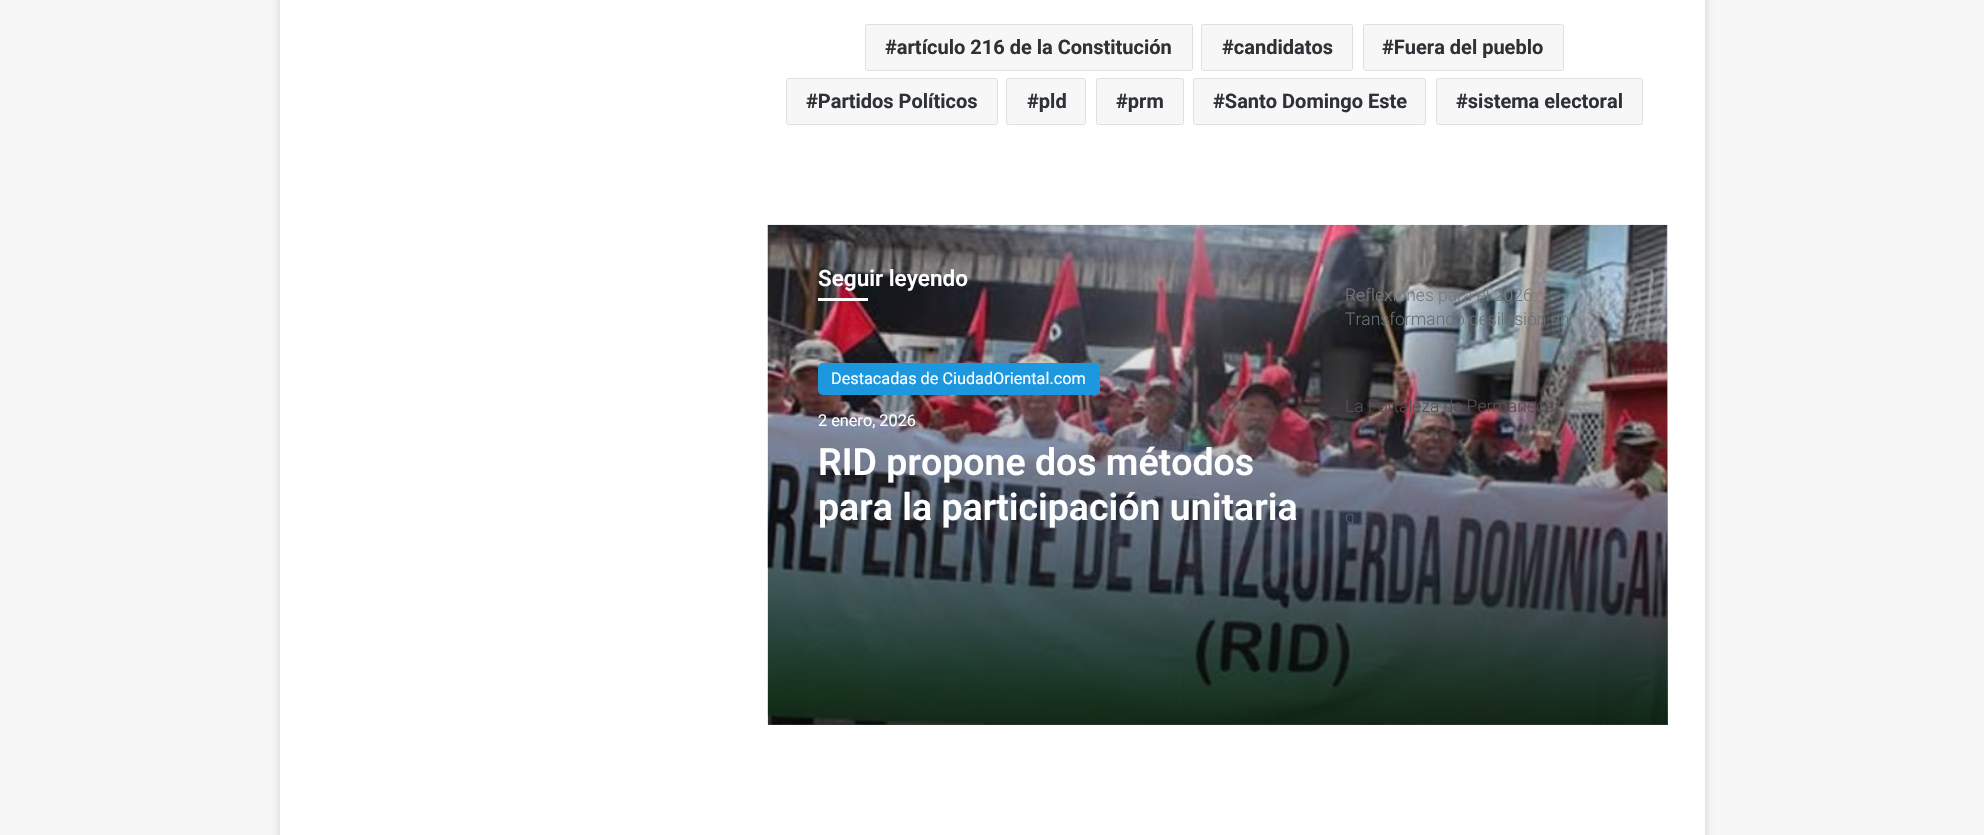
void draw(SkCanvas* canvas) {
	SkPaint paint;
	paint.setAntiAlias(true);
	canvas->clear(0xfff7f7f7);
	paint.setColor(0x80ababab);
	paint.setMaskFilter(SkMaskFilter::MakeBlur(kNormal_SkBlurStyle, 4.5));
	canvas->drawRect(SkRect::MakeXYWH(280, -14, 1425, 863), paint);
	paint.setMaskFilter(nullptr);
	paint.setColor(0xffffffff);
	canvas->drawRect(SkRect::MakeXYWH(280, 0, 1425, 835), paint);
	paint.setColor(0xfff7f7f7);
	canvas->drawRoundRect(SkRect::MakeXYWH(865.5, 24.5, 327, 46), 2, 2, paint);
	paint.setStroke(true);
	paint.setStrokeWidth(1);
	paint.setColor(0xffdfdfdf);
	canvas->drawRoundRect(SkRect::MakeXYWH(865.5, 24.5, 327, 46), 2, 2, paint);
	SkFont f1(fontMgr->matchFamilyStyle("Roboto", SkFontStyle::Bold()), 20);
	f1.setSubpixel(true);
	paint.setStroke(false);
	paint.setColor(0xff2e3136);
	canvas->drawString("#artículo 216 de la Constitución", 885, 54, f1, paint);
	paint.setColor(0xfff7f7f7);
	canvas->drawRoundRect(SkRect::MakeXYWH(1201.5, 24.5, 151, 46), 2, 2, paint);
	paint.setStroke(true);
	paint.setColor(0xffdfdfdf);
	canvas->drawRoundRect(SkRect::MakeXYWH(1201.5, 24.5, 151, 46), 2, 2, paint);
	paint.setStroke(false);
	paint.setColor(0xff2e3136);
	canvas->drawString("#candidatos", 1222, 54, f1, paint);
	paint.setColor(0xfff7f7f7);
	canvas->drawRoundRect(SkRect::MakeXYWH(1363.5, 24.5, 200, 46), 2, 2, paint);
	paint.setStroke(true);
	paint.setColor(0xffdfdfdf);
	canvas->drawRoundRect(SkRect::MakeXYWH(1363.5, 24.5, 200, 46), 2, 2, paint);
	paint.setStroke(false);
	paint.setColor(0xff2e3136);
	canvas->drawString("#Fuera del pueblo", 1382, 54, f1, paint);
	paint.setColor(0xfff7f7f7);
	canvas->drawRoundRect(SkRect::MakeXYWH(786.5, 78.5, 211, 46), 2, 2, paint);
	paint.setStroke(true);
	paint.setColor(0xffdfdfdf);
	canvas->drawRoundRect(SkRect::MakeXYWH(786.5, 78.5, 211, 46), 2, 2, paint);
	paint.setStroke(false);
	paint.setColor(0xff2e3136);
	canvas->drawString("#Partidos Políticos", 806, 108, f1, paint);
	paint.setColor(0xfff7f7f7);
	canvas->drawRoundRect(SkRect::MakeXYWH(1006.5, 78.5, 79, 46), 2, 2, paint);
	paint.setStroke(true);
	paint.setColor(0xffdfdfdf);
	canvas->drawRoundRect(SkRect::MakeXYWH(1006.5, 78.5, 79, 46), 2, 2, paint);
	paint.setStroke(false);
	paint.setColor(0xff2e3136);
	canvas->drawString("#pld", 1027, 108, f1, paint);
	paint.setColor(0xfff7f7f7);
	canvas->drawRoundRect(SkRect::MakeXYWH(1096.5, 78.5, 87, 46), 2, 2, paint);
	paint.setStroke(true);
	paint.setColor(0xffdfdfdf);
	canvas->drawRoundRect(SkRect::MakeXYWH(1096.5, 78.5, 87, 46), 2, 2, paint);
	paint.setStroke(false);
	paint.setColor(0xff2e3136);
	canvas->drawString("#prm", 1116, 108, f1, paint);
	paint.setColor(0xfff7f7f7);
	canvas->drawRoundRect(SkRect::MakeXYWH(1193.5, 78.5, 232, 46), 2, 2, paint);
	paint.setStroke(true);
	paint.setColor(0xffdfdfdf);
	canvas->drawRoundRect(SkRect::MakeXYWH(1193.5, 78.5, 232, 46), 2, 2, paint);
	paint.setStroke(false);
	paint.setColor(0xff2e3136);
	canvas->drawString("#Santo Domingo Este", 1213, 108, f1, paint);
	paint.setColor(0xfff7f7f7);
	canvas->drawRoundRect(SkRect::MakeXYWH(1436.5, 78.5, 206, 46), 2, 2, paint);
	paint.setStroke(true);
	paint.setColor(0xffdfdfdf);
	canvas->drawRoundRect(SkRect::MakeXYWH(1436.5, 78.5, 206, 46), 2, 2, paint);
	paint.setStroke(false);
	paint.setColor(0xff2e3136);
	canvas->drawString("#sistema electoral", 1456, 108, f1, paint);
	canvas->drawImageRect(SkImages::DeferredFromEncodedData(SkData::MakeFromFileName("img1.png")), SkRect::MakeXYWH(767, 224, 901, 501), SkSamplingOptions());
	SkFont f2(fontMgr->matchFamilyStyle("Roboto", SkFontStyle(600, SkFontStyle::kNormal_Width, SkFontStyle::kUpright_Slant)), 22.5);
	f2.setSubpixel(true);
	paint.setColor(0xfffdfeff);
	canvas->drawString("Seguir leyendo", 818, 286, f2, paint);
	paint.setColor(0xfcffffff);
	canvas->drawRect(SkRect::MakeXYWH(818, 298, 50, 3), paint);
	{
		const SkColor colors[] = {0x00000000, 0xbd000000};
		const float stops[] = {0, 1};
		const SkPoint ends[] = {{1218, 300}, {1218, 725}};
		paint.setShader(SkGradientShader::MakeLinear(ends, colors, stops, 2, SkTileMode::kClamp));
		paint.setAlpha(255);
	}
	canvas->drawRect(SkRect::MakeXYWH(768, 312, 900, 413), paint);
	paint.setShader(nullptr);
	paint.setColor(0xfc1b98e0);
	canvas->drawRoundRect(SkRect::MakeXYWH(818, 363, 282, 32), 5, 5, paint);
	SkFont f3(fontMgr->matchFamilyStyle("Roboto", SkFontStyle::Normal()), 16.25);
	f3.setSubpixel(true);
	paint.setColor(0xfffdfeff);
	canvas->drawString("Destacadas de CiudadOriental.com", 831, 384, f3, paint);
	canvas->drawString("2 enero, 2026", 818, 426, f3, paint);
	SkFont f4(fontMgr->matchFamilyStyle("Roboto", SkFontStyle(600, SkFontStyle::kNormal_Width, SkFontStyle::kUpright_Slant)), 37.5);
	f4.setSubpixel(true);
	canvas->drawString("RID propone dos métodos", 818, 475, f4, paint);
	canvas->drawString("para la participación unitaria", 818, 520, f4, paint);
	SkFont f5(fontMgr->matchFamilyStyle("Roboto", SkFontStyle(300, SkFontStyle::kNormal_Width, SkFontStyle::kUpright_Slant)), 17.5);
	f5.setSubpixel(true);
	paint.setColor(0xff757a80);
	canvas->drawString("Reflexiones para el 2026:", 1345, 301, f5, paint);
	paint.setColor(0xff697075);
	canvas->drawString("Transformando desilusión en", 1345, 325, f5, paint);
	paint.setColor(0xff5a4c51);
	canvas->drawString("La Fortaleza de Permanecer", 1345, 412, f5, paint);
	paint.setColor(0xff5a5967);
	canvas->drawString("q", 1345, 523, f5, paint);
}
